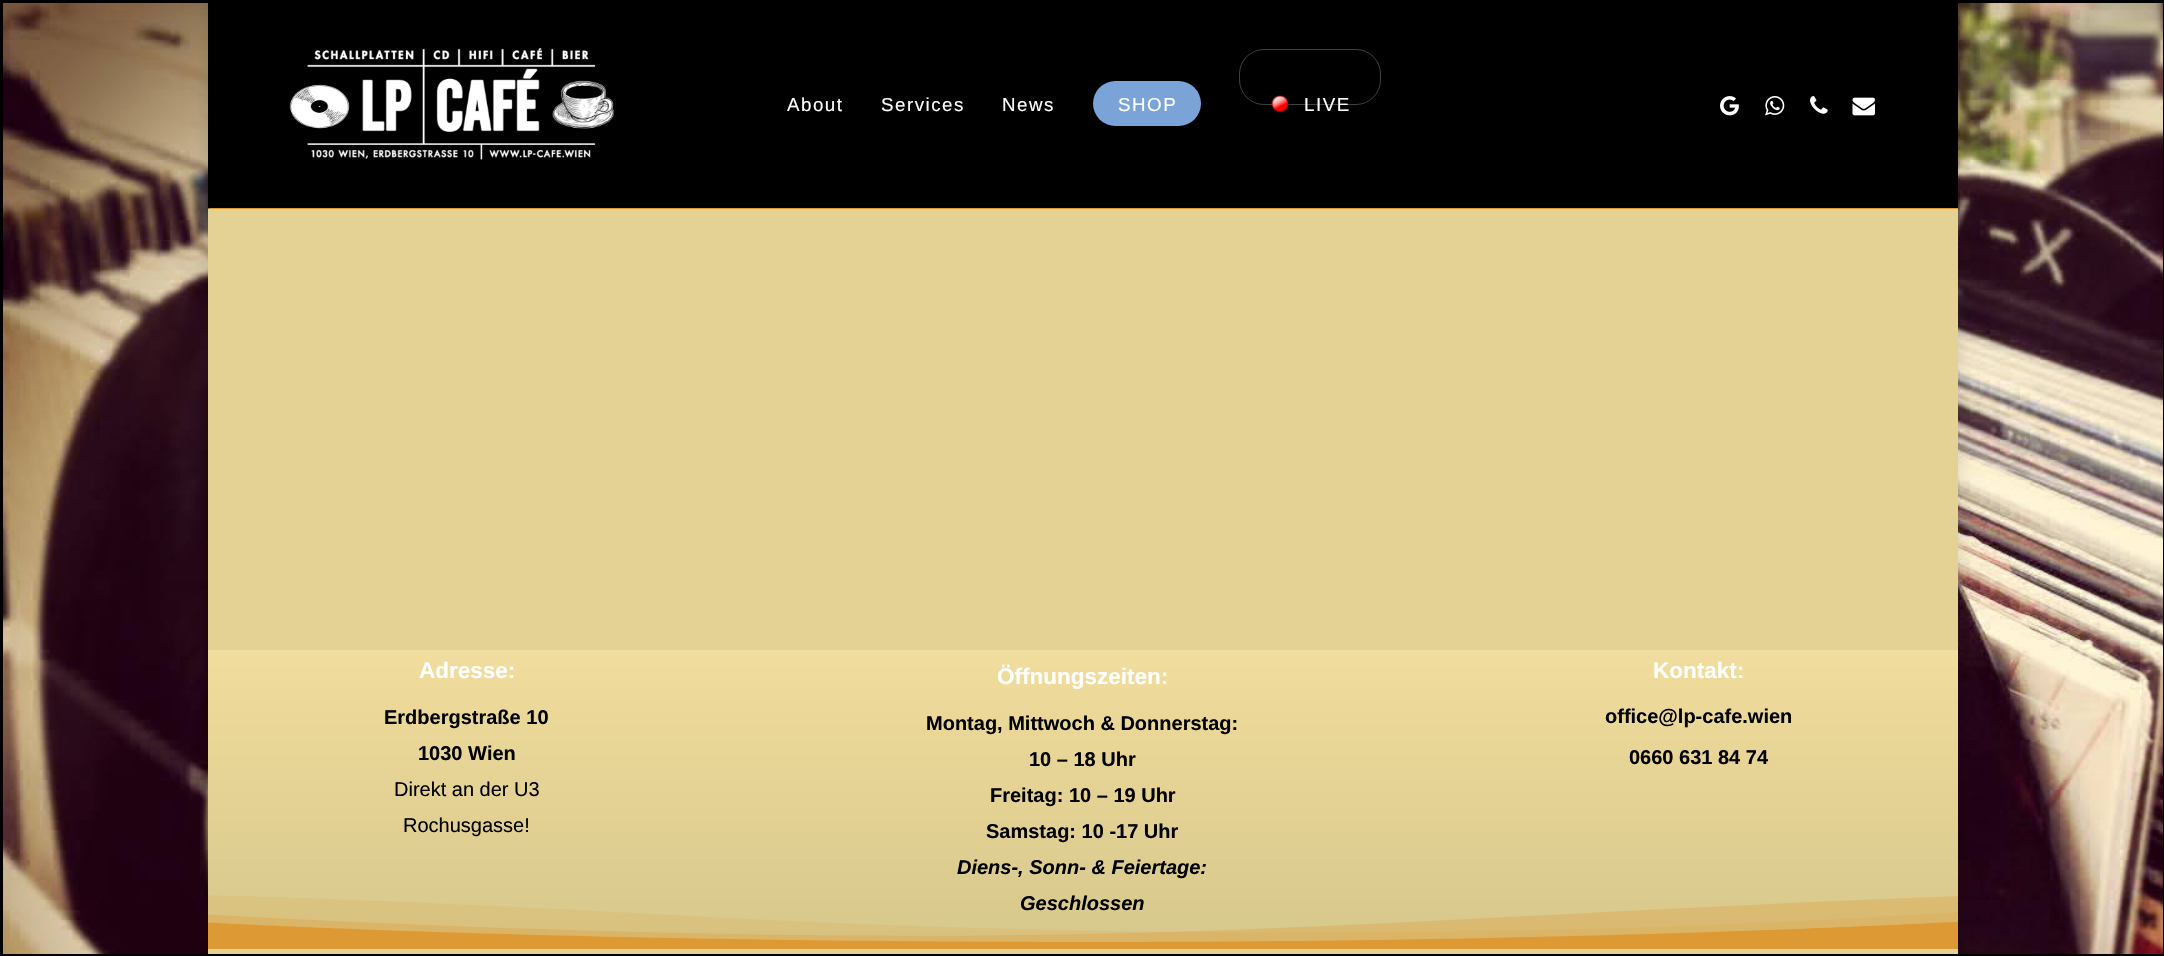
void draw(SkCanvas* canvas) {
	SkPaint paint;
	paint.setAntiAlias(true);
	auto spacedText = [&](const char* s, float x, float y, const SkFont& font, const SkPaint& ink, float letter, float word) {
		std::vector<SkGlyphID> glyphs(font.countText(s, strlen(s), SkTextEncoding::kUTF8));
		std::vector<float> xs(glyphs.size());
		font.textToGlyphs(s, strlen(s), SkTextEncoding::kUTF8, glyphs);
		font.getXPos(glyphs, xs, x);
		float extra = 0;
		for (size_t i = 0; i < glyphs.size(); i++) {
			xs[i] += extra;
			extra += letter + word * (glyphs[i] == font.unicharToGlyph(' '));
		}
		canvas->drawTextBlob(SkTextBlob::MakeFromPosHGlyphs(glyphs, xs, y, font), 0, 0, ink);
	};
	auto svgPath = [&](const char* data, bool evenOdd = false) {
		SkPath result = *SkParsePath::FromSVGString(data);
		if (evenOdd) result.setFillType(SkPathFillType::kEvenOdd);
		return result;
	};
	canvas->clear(0xffffffff);
	canvas->drawImageRect(SkImages::DeferredFromEncodedData(SkData::MakeFromFileName("img1.png")), SkRect::MakeXYWH(3, 3, 2160, 951), SkSamplingOptions());
	paint.setColor(0x26000000);
	paint.setMaskFilter(SkMaskFilter::MakeBlur(kNormal_SkBlurStyle, 9.5));
	canvas->drawRect(SkRect::MakeXYWH(208, 0, 1750, 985), paint);
	paint.setMaskFilter(nullptr);
	paint.setColor(0xff000000);
	canvas->drawRect(SkRect::MakeXYWH(0, 0, 2164, 3), paint);
	canvas->drawRect(SkRect::MakeXYWH(2163, 0, 1, 956), paint);
	canvas->drawRect(SkRect::MakeXYWH(0, 954, 2164, 2), paint);
	canvas->drawRect(SkRect::MakeXYWH(0, 0, 3, 956), paint);
	canvas->drawRect(SkRect::MakeXYWH(208, 3, 1750, 205), paint);
	paint.setColor(0xffe4d295);
	canvas->drawRect(SkRect::MakeXYWH(208, 208, 1750, 746), paint);
	paint.setColor(0x70000000);
	canvas->drawRect(SkRect::MakeXYWH(208, 208, 1750, 1), paint);
	paint.setColor(0xffdd9933);
	canvas->drawRect(SkRect::MakeXYWH(210, 208, 1748, 1), paint);
	canvas->drawImageRect(SkImages::DeferredFromEncodedData(SkData::MakeFromFileName("img2.png")), SkRect::MakeXYWH(289, 47, 326, 113), SkSamplingOptions());
	SkFont f1(fontMgr->matchFamilyStyle("Liberation Sans", SkFontStyle::Normal()), 18.75);
	f1.setSubpixel(true);
	paint.setColor(0xffffffff);
	spacedText("About", 787, 111, f1, paint, 1.5, 0);
	spacedText("Services", 881, 111, f1, paint, 1.5, 0);
	spacedText("News", 1002, 111, f1, paint, 1.5, 0);
	paint.setColor(0xff7aa4d7);
	canvas->drawRoundRect(SkRect::MakeXYWH(1093, 81, 108, 45), 22.5, 22.5, paint);
	paint.setColor(0xffffffff);
	spacedText("SHOP", 1118, 111, f1, paint, 1.5, 0);
	paint.setStroke(true);
	paint.setStrokeWidth(1);
	paint.setColor(0xff404040);
	canvas->drawRoundRect(SkRect::MakeXYWH(1239.5, 49.5, 141, 55), 24.5, 24.5, paint);
	canvas->drawImageRect(SkImages::DeferredFromEncodedData(SkData::MakeFromFileName("img3.png")), SkRect::MakeXYWH(1270, 94, 20, 19), SkSamplingOptions());
	paint.setStroke(false);
	paint.setColor(0xffffffff);
	spacedText("LIVE", 1304, 111, f1, paint, 1.5, 0);
	canvas->drawImageRect(SkImages::DeferredFromEncodedData(SkData::MakeFromFileName("img4.png")), SkRect::MakeXYWH(1720, 96, 19, 20), SkSamplingOptions());
	canvas->drawImageRect(SkImages::DeferredFromEncodedData(SkData::MakeFromFileName("img5.png")), SkRect::MakeXYWH(1765, 96, 20, 20), SkSamplingOptions());
	canvas->drawImageRect(SkImages::DeferredFromEncodedData(SkData::MakeFromFileName("img6.png")), SkRect::MakeXYWH(1810, 96, 18, 18), SkSamplingOptions());
	canvas->drawImageRect(SkImages::DeferredFromEncodedData(SkData::MakeFromFileName("img7.png")), SkRect::MakeXYWH(1852, 97, 23, 19), SkSamplingOptions());
	{
		const SkColor colors[] = {0xfff1dd9d, 0xffd6c78b};
		const float stops[] = {0, 1};
		const SkPoint ends[] = {{1083, 650}, {1083, 948}};
		paint.setShader(SkGradientShader::MakeLinear(ends, colors, stops, 2, SkTileMode::kClamp));
		paint.setAlpha(255);
	}
	canvas->drawRect(SkRect::MakeXYWH(208, 650, 1750, 292), paint);
	SkFont f2(fontMgr->matchFamilyStyle("Liberation Sans", SkFontStyle::Bold()), 22.5);
	f2.setSubpixel(true);
	paint.setShader(nullptr);
	paint.setColor(0xffffffff);
	canvas->drawString("Adresse:", 419, 678, f2, paint);
	SkFont f3(fontMgr->matchFamilyStyle("Liberation Sans", SkFontStyle::Bold()), 20);
	f3.setSubpixel(true);
	paint.setColor(0xff000000);
	canvas->drawString("Erdbergstraße 10", 384, 724, f3, paint);
	canvas->drawString("1030 Wien", 418, 760, f3, paint);
	SkFont f4(fontMgr->matchFamilyStyle("Liberation Sans", SkFontStyle::Normal()), 20);
	f4.setSubpixel(true);
	canvas->drawString("Direkt an der U3", 394, 796, f4, paint);
	canvas->drawString("Rochusgasse!", 403, 832, f4, paint);
	paint.setColor(0xffffffff);
	canvas->drawString("Öffnungszeiten:", 997, 684, f2, paint);
	paint.setColor(0xff000000);
	canvas->drawString("Montag, Mittwoch & Donnerstag:", 926, 730, f3, paint);
	canvas->drawString("10 – 18 Uhr", 1029, 766, f3, paint);
	canvas->drawString("Freitag: 10 – 19 Uhr", 990, 802, f3, paint);
	canvas->drawString("Samstag: 10 -17 Uhr", 986, 838, f3, paint);
	SkFont f5(fontMgr->matchFamilyStyle("Liberation Sans", SkFontStyle::BoldItalic()), 20);
	f5.setSubpixel(true);
	canvas->drawString("Diens-, Sonn- & Feiertage:", 957, 874, f5, paint);
	canvas->save();
	canvas->clipRect(SkRect::MakeXYWH(208, 886, 1750, 63));
	paint.setColor(0x26dd9933);
	canvas->drawPath(svgPath("M198 895C198 895 354 897 729 918C1189 942 1639 934 1974 911L1995 929L2000 951H198Z"), paint);
	paint.setColor(0x4ddd9933);
	canvas->drawPath(svgPath("M198 914C198 914 677 943 1083 934C1361 929 1667 905 1995 895V949H198Z"), paint);
	canvas->restore();
	paint.setColor(0xff000000);
	canvas->drawString("Geschlossen", 1020, 910, f5, paint);
	paint.setColor(0xffffffff);
	canvas->drawString("Kontakt:", 1653, 678, f2, paint);
	paint.setColor(0xff000000);
	canvas->drawString("office@lp-cafe.wien", 1605, 723, f3, paint);
	canvas->drawString("0660 631 84 74", 1629, 764, f3, paint);
	canvas->save();
	canvas->clipRect(SkRect::MakeXYWH(208, 886, 1750, 63));
	paint.setColor(0xffdd9933);
	canvas->drawPath(svgPath("M198 922C198 922 531 942 1097 942C1611 942 1972 921 1972 921V949H198Z"), paint);
	canvas->restore();
}
